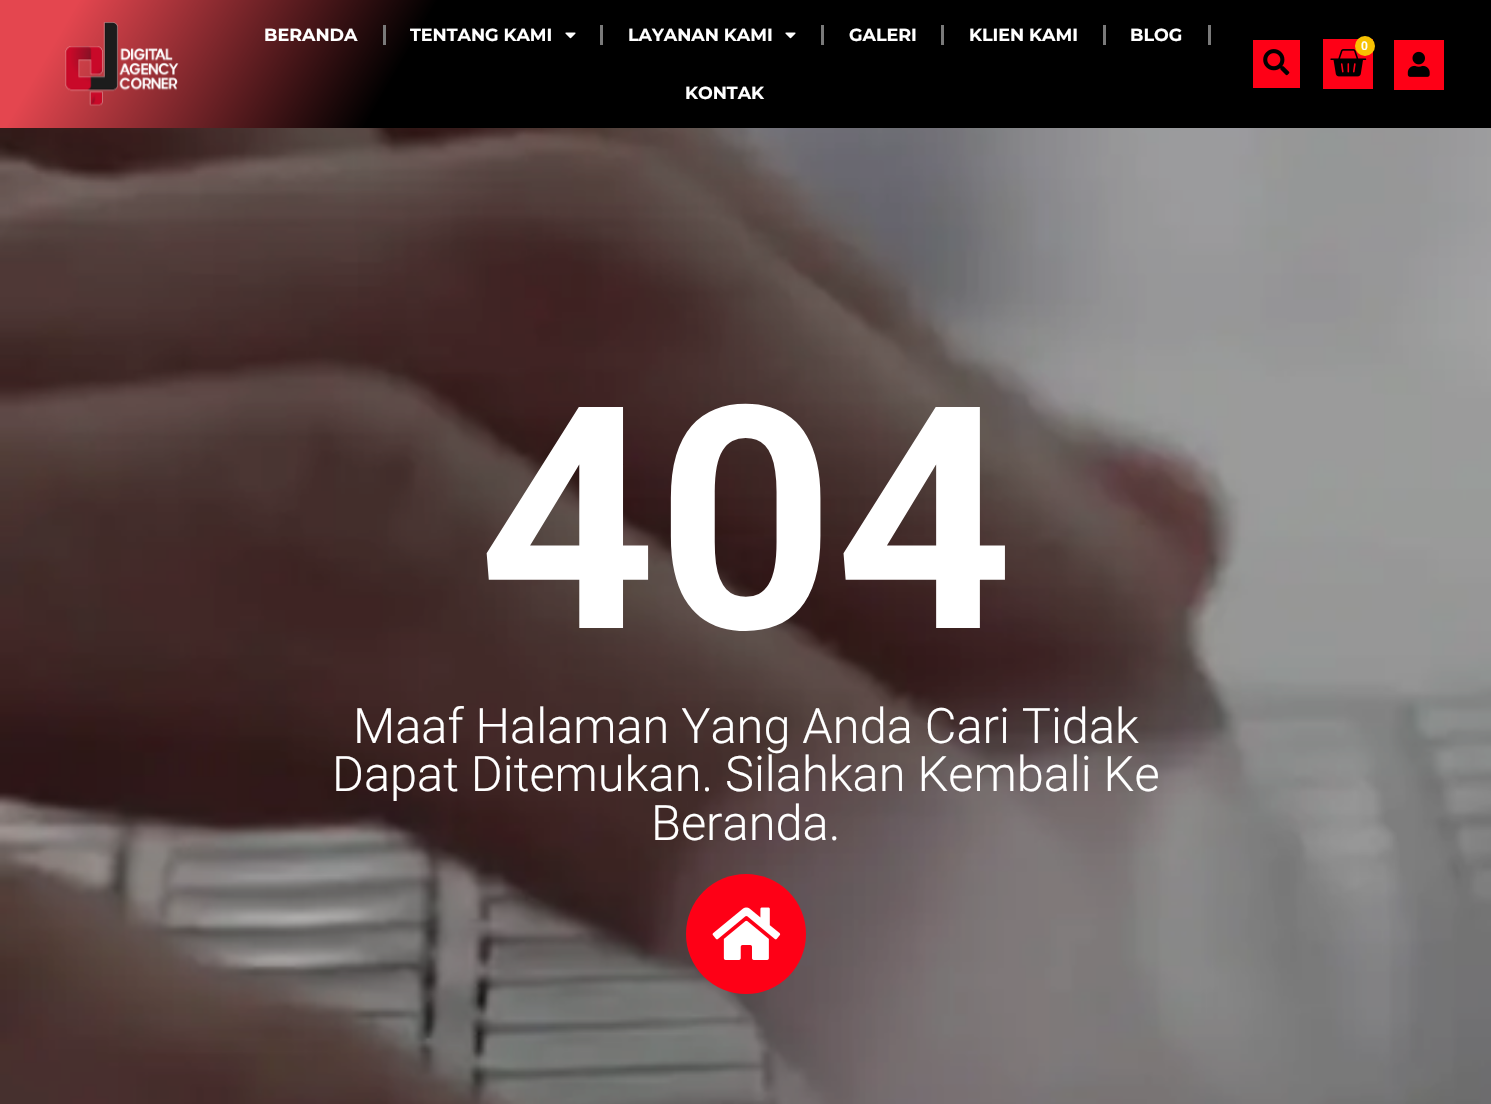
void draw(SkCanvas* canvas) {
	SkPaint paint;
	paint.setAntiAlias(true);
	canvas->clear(0xffffffff);
	{
		const SkColor colors[] = {0xff000000, 0xffe4464f};
		const float stops[] = {0.72, 0.95};
		const SkPoint ends[] = {{1332, 403}, {159, -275}};
		paint.setShader(SkGradientShader::MakeLinear(ends, colors, stops, 2, SkTileMode::kClamp));
		paint.setAlpha(255);
	}
	canvas->drawRect(SkRect::MakeXYWH(0, 0, 1491, 128), paint);
	canvas->drawImageRect(SkImages::DeferredFromEncodedData(SkData::MakeFromFileName("img1.png")), SkRect::MakeXYWH(65, 22, 114, 84), SkSamplingOptions());
	SkFont f1(fontMgr->matchFamilyStyle("Montserrat", SkFontStyle::Bold()), 17.5);
	f1.setSubpixel(true);
	paint.setShader(nullptr);
	paint.setColor(0xffffffff);
	canvas->drawString("BERANDA", 264, 41, f1, paint);
	paint.setColor(0xff7a7a7a);
	canvas->drawRect(SkRect::MakeXYWH(383, 25, 3, 20), paint);
	paint.setColor(0xffffffff);
	canvas->drawString("TENTANG KAMI", 410, 41, f1, paint);
	canvas->drawImageRect(SkImages::DeferredFromEncodedData(SkData::MakeFromFileName("img2.png")), SkRect::MakeXYWH(565, 32, 11, 7), SkSamplingOptions());
	paint.setColor(0xff7a7a7a);
	canvas->drawRect(SkRect::MakeXYWH(600, 25, 3, 20), paint);
	paint.setColor(0xffffffff);
	canvas->drawString("LAYANAN KAMI", 628, 41, f1, paint);
	canvas->drawImageRect(SkImages::DeferredFromEncodedData(SkData::MakeFromFileName("img2.png")), SkRect::MakeXYWH(785, 32, 11, 7), SkSamplingOptions());
	paint.setColor(0xff7a7a7a);
	canvas->drawRect(SkRect::MakeXYWH(821, 25, 3, 20), paint);
	paint.setColor(0xffffffff);
	canvas->drawString("GALERI", 849, 41, f1, paint);
	paint.setColor(0xff7a7a7a);
	canvas->drawRect(SkRect::MakeXYWH(941, 25, 3, 20), paint);
	paint.setColor(0xffffffff);
	canvas->drawString("KLIEN KAMI", 969, 41, f1, paint);
	paint.setColor(0xff7a7a7a);
	canvas->drawRect(SkRect::MakeXYWH(1103, 25, 3, 20), paint);
	paint.setColor(0xffffffff);
	canvas->drawString("BLOG", 1130, 41, f1, paint);
	paint.setColor(0xff7a7a7a);
	canvas->drawRect(SkRect::MakeXYWH(1208, 25, 3, 20), paint);
	paint.setColor(0xffffffff);
	canvas->drawString("KONTAK", 685, 99, f1, paint);
	paint.setColor(0xfffe0016);
	canvas->drawRect(SkRect::MakeXYWH(1253, 40, 47, 48), paint);
	canvas->drawImageRect(SkImages::DeferredFromEncodedData(SkData::MakeFromFileName("img3.png")), SkRect::MakeXYWH(1263, 49, 27, 27), SkSamplingOptions());
	canvas->drawRect(SkRect::MakeXYWH(1323, 39, 50, 50), paint);
	canvas->drawImageRect(SkImages::DeferredFromEncodedData(SkData::MakeFromFileName("img4.png")), SkRect::MakeXYWH(1330, 49, 37, 28), SkSamplingOptions());
	paint.setColor(0xfff8c202);
	canvas->drawCircle(1365, 46, 10, paint);
	SkFont f2(fontMgr->matchFamilyStyle("Roboto", SkFontStyle(600, SkFontStyle::kNormal_Width, SkFontStyle::kUpright_Slant)), 12);
	f2.setSubpixel(true);
	paint.setColor(0xffffffff);
	canvas->drawString("0", 1361, 50, f2, paint);
	paint.setColor(0xfffe0016);
	canvas->drawRect(SkRect::MakeXYWH(1394, 40, 50, 50), paint);
	canvas->drawImageRect(SkImages::DeferredFromEncodedData(SkData::MakeFromFileName("img5.png")), SkRect::MakeXYWH(1407, 51, 23, 26), SkSamplingOptions());
	canvas->drawImageRect(SkImages::DeferredFromEncodedData(SkData::MakeFromFileName("img6.png")), SkRect::MakeXYWH(0, 128, 1491, 976), SkSamplingOptions());
	SkFont f3(fontMgr->matchFamilyStyle("Roboto", SkFontStyle::Bold()), 311);
	f3.setSubpixel(true);
	paint.setColor(0xffffffff);
	canvas->drawString("404", 478, 628, f3, paint);
	SkFont f4(fontMgr->matchFamilyStyle("Roboto", SkFontStyle(300, SkFontStyle::kNormal_Width, SkFontStyle::kUpright_Slant)), 48.75);
	f4.setSubpixel(true);
	canvas->drawString("Maaf Halaman Yang Anda Cari Tidak", 353, 743, f4, paint);
	canvas->drawString("Dapat Ditemukan. Silahkan Kembali Ke", 332, 791, f4, paint);
	canvas->drawString("Beranda.", 651, 840, f4, paint);
	paint.setColor(0xfffe0016);
	canvas->drawCircle(746, 934, 60, paint);
	canvas->drawImageRect(SkImages::DeferredFromEncodedData(SkData::MakeFromFileName("img7.png")), SkRect::MakeXYWH(712, 907, 69, 53), SkSamplingOptions());
}
